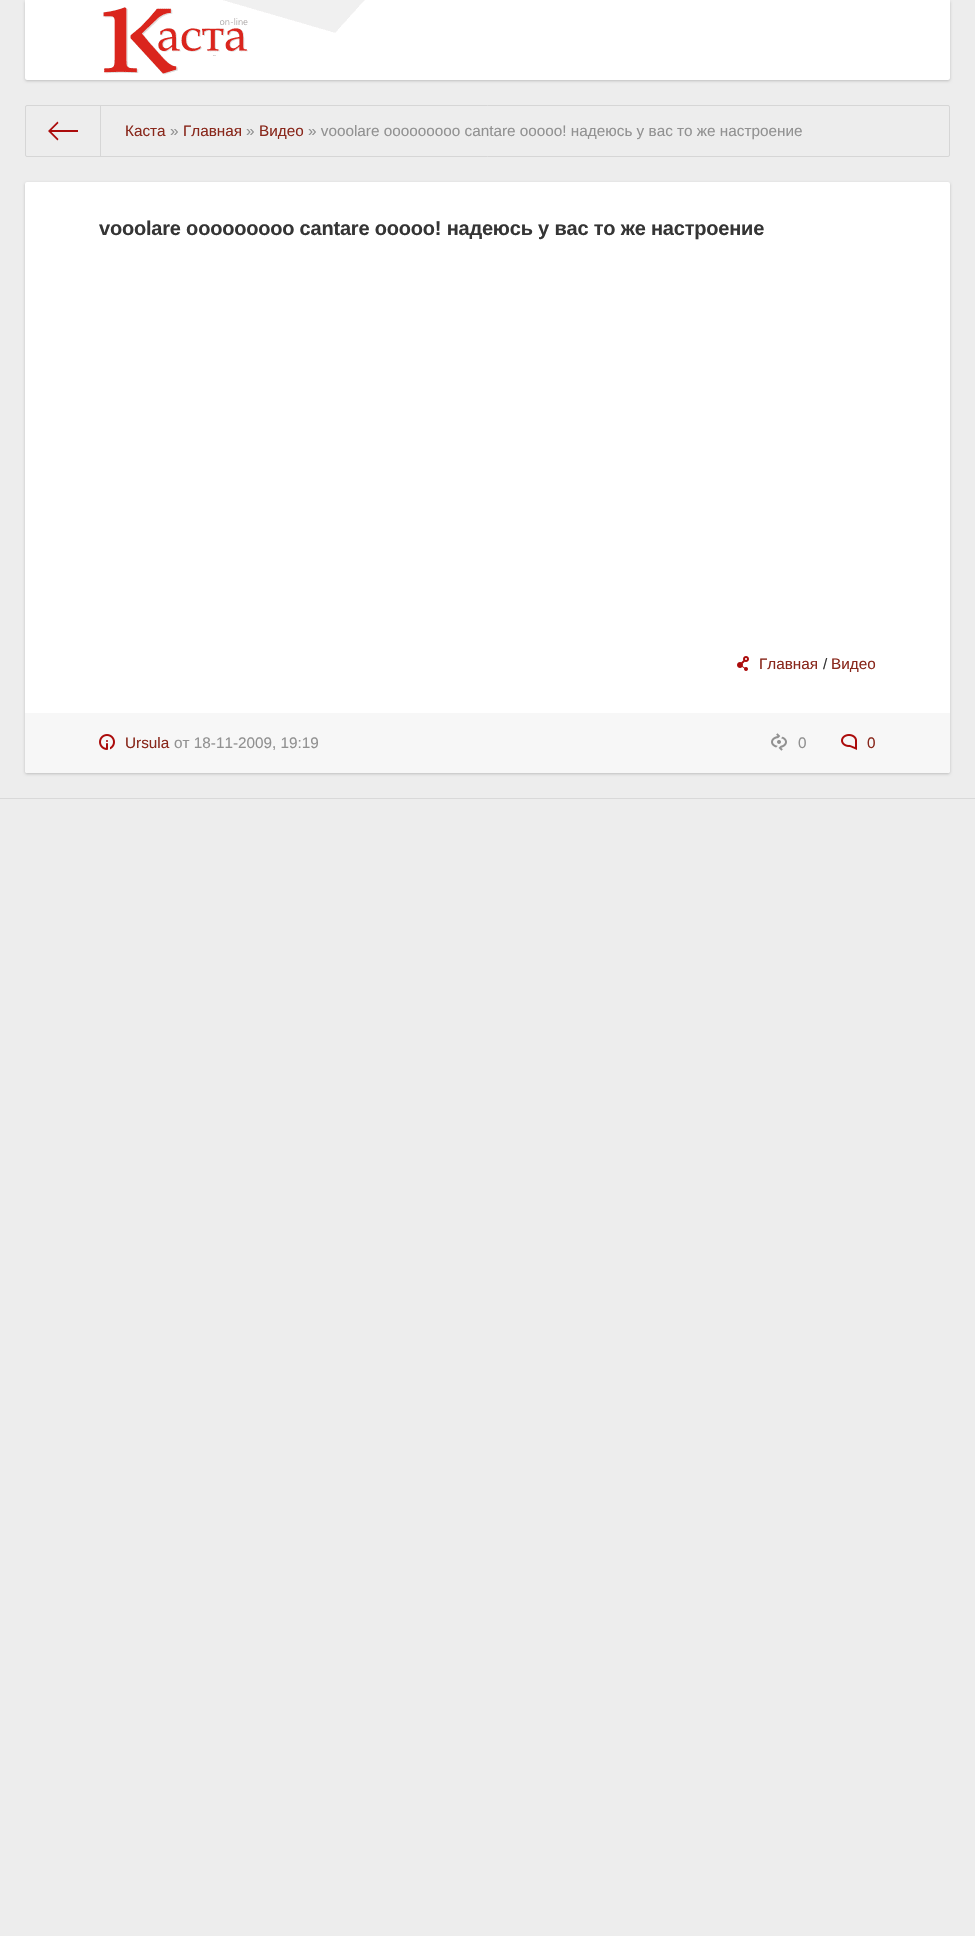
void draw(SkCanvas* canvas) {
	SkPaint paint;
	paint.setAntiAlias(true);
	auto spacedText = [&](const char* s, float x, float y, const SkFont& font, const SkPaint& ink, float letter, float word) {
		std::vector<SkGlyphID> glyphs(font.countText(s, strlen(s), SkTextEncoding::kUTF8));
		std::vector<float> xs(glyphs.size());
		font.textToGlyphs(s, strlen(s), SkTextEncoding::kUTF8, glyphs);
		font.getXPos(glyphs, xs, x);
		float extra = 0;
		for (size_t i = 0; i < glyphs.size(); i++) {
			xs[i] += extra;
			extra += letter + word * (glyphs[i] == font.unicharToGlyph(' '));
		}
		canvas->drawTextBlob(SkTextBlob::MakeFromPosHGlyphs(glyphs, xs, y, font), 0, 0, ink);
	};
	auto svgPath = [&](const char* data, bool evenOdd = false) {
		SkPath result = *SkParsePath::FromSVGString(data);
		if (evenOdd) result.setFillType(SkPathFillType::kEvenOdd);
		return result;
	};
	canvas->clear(0xffededed);
	paint.setColor(0x33000000);
	paint.setMaskFilter(SkMaskFilter::MakeBlur(kNormal_SkBlurStyle, 1.5));
	canvas->drawRoundRect(SkRect::MakeXYWH(25, 1, 925, 80), 2, 2, paint);
	paint.setMaskFilter(nullptr);
	paint.setColor(0xffffffff);
	canvas->drawPath(svgPath("M25 0H950V78C950 79 949 80 948 80H27C26 80 25 79 25 78Z"), paint);
	canvas->drawImageRect(SkImages::DeferredFromEncodedData(SkData::MakeFromFileName("img1.png")), SkRect::MakeXYWH(103, 0, 262, 75), SkSamplingOptions());
	paint.setStroke(true);
	paint.setStrokeWidth(1);
	paint.setColor(0xffd6d6d6);
	canvas->drawRoundRect(SkRect::MakeXYWH(25.5, 105.5, 924, 51), 1.5, 1.5, paint);
	paint.setStroke(false);
	canvas->drawRect(SkRect::MakeXYWH(100, 106, 1, 50), paint);
	paint.setColor(0xffab0b0b);
	canvas->drawPath(svgPath("M78 132H51.5L58.5 139L57.5 140.5L48 131L57.5 121.5L58.5 123L51.5 130H78Z"), paint);
	SkFont f1(fontMgr->matchFamilyStyle("Liberation Sans", SkFontStyle::Normal()), 15.3);
	f1.setSubpixel(true);
	paint.setColor(0xff89281c);
	canvas->drawString("Каста", 125, 136, f1, paint);
	paint.setColor(0xff919191);
	canvas->drawString("»", 170, 136, f1, paint);
	paint.setColor(0xff89281c);
	canvas->drawString("Главная", 183, 136, f1, paint);
	paint.setColor(0xff919191);
	canvas->drawString("»", 246, 136, f1, paint);
	paint.setColor(0xff89281c);
	canvas->drawString("Видео", 259, 136, f1, paint);
	paint.setColor(0xff919191);
	canvas->drawString("» vooolare ooooooooo cantare ooooo! надеюсь у вас то же настроение", 308, 136, f1, paint);
	paint.setColor(0x33000000);
	paint.setMaskFilter(SkMaskFilter::MakeBlur(kNormal_SkBlurStyle, 1.5));
	canvas->drawRoundRect(SkRect::MakeXYWH(25, 183, 925, 591), 2, 2, paint);
	paint.setMaskFilter(nullptr);
	paint.setColor(0xffffffff);
	canvas->drawRoundRect(SkRect::MakeXYWH(25, 182, 925, 591), 2, 2, paint);
	SkFont f2(fontMgr->matchFamilyStyle("Liberation Sans", SkFontStyle::Bold()), 20);
	f2.setSubpixel(true);
	paint.setColor(0xff353535);
	spacedText("vooolare ooooooooo cantare ooooo! надеюсь у вас то же настроение", 99, 235, f2, paint, -0.2, 0);
	canvas->drawImageRect(SkImages::DeferredFromEncodedData(SkData::MakeFromFileName("img2.png")), SkRect::MakeXYWH(737, 656, 12, 15), SkSamplingOptions());
	paint.setColor(0xff89281c);
	canvas->drawString("Главная", 759, 669, f1, paint);
	paint.setColor(0xff353535);
	canvas->drawString("/", 823, 669, f1, paint);
	paint.setColor(0xff89281c);
	canvas->drawString("Видео", 831, 669, f1, paint);
	paint.setColor(0xfff7f7f7);
	canvas->drawPath(svgPath("M25 713H950V771C950 772 949 773 948 773H27C26 773 25 772 25 771Z"), paint);
	canvas->drawImageRect(SkImages::DeferredFromEncodedData(SkData::MakeFromFileName("img3.png")), SkRect::MakeXYWH(99, 734, 16, 16), SkSamplingOptions());
	paint.setColor(0xff89281c);
	canvas->drawString("Ursula", 125, 748, f1, paint);
	paint.setColor(0xff919191);
	canvas->drawString("от 18-11-2009, 19:19", 174, 748, f1, paint);
	canvas->drawImageRect(SkImages::DeferredFromEncodedData(SkData::MakeFromFileName("img4.png")), SkRect::MakeXYWH(771, 733, 16, 18), SkSamplingOptions());
	canvas->drawString("0", 798, 748, f1, paint);
	canvas->drawImageRect(SkImages::DeferredFromEncodedData(SkData::MakeFromFileName("img5.png")), SkRect::MakeXYWH(841, 734, 16, 16), SkSamplingOptions());
	paint.setColor(0xff89281c);
	canvas->drawString("0", 867, 748, f1, paint);
	paint.setColor(0xffd9d9d9);
	canvas->drawRect(SkRect::MakeXYWH(0, 798, 975, 1), paint);
}
